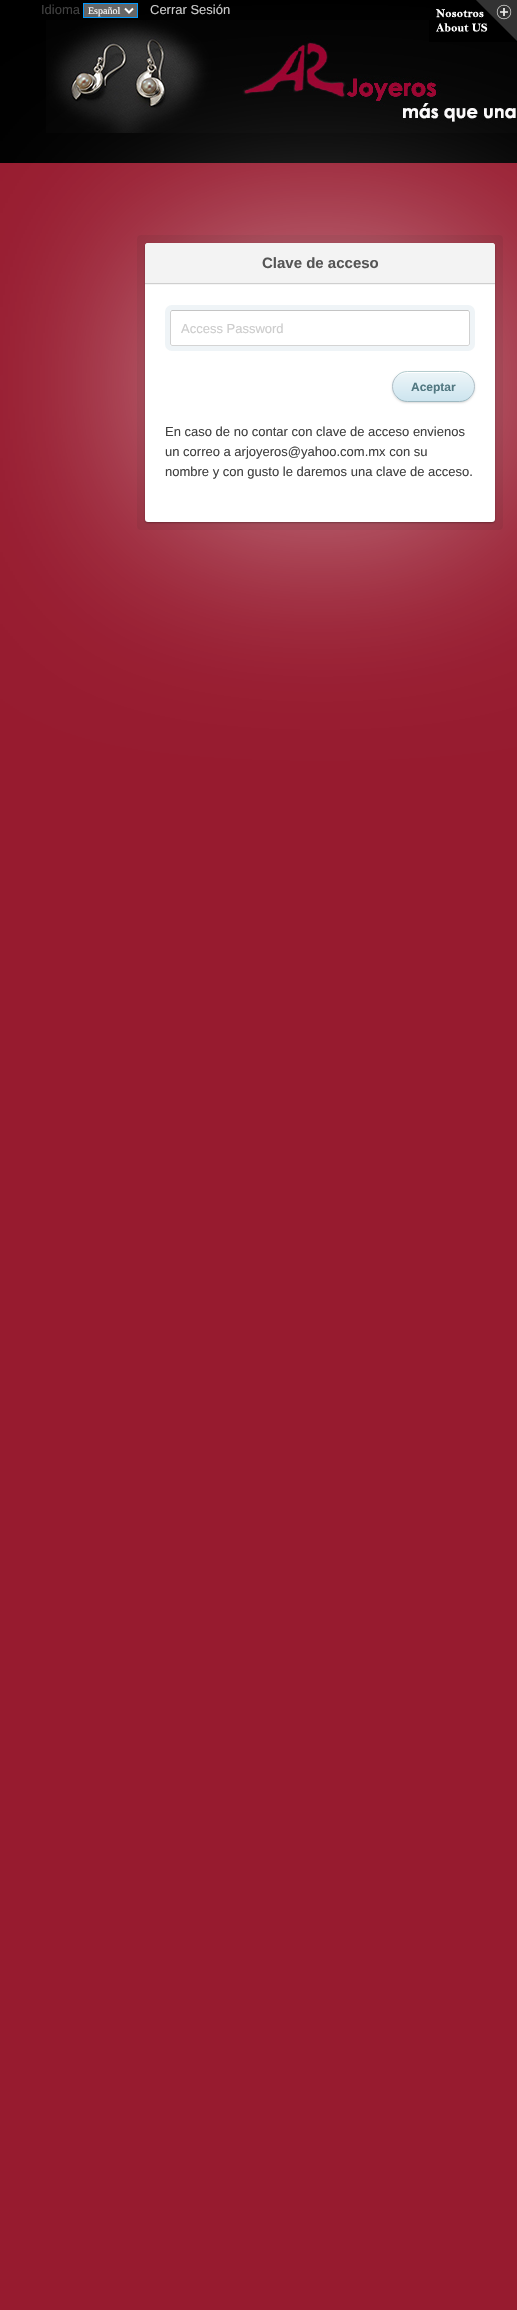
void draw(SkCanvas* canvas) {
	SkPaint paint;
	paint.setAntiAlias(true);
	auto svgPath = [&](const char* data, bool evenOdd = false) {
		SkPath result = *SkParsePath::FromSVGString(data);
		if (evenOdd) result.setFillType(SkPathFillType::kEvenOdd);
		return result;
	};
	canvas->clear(0xff971b2f);
	paint.setColor(0xff000000);
	canvas->drawRect(SkRect::MakeXYWH(0, 0, 517, 163), paint);
	SkFont f1(fontMgr->matchFamilyStyle("Liberation Sans", SkFontStyle::Normal()), 13);
	f1.setSubpixel(true);
	paint.setColor(0xff404040);
	canvas->drawString("Idioma", 41, 14, f1, paint);
	paint.setColor(0xff666666);
	canvas->drawRect(SkRect::MakeXYWH(83.5, 3.5, 54, 14), paint);
	paint.setStroke(true);
	paint.setStrokeWidth(1);
	paint.setColor(0xff0099ff);
	canvas->drawRect(SkRect::MakeXYWH(83.5, 3.5, 54, 14), paint);
	paint.setStrokeWidth(2);
	paint.setColor(0xffffffff);
	canvas->drawPath(svgPath("M125 8.5L129 12.5L133 8.5"), paint);
	SkFont f2(fontMgr->matchFamilyStyle("Liberation Serif", SkFontStyle::Normal()), 10);
	f2.setSubpixel(true);
	paint.setStroke(false);
	canvas->drawString("Español", 88, 14, f2, paint);
	paint.setColor(0xffcccccc);
	canvas->drawString("Cerrar Sesión", 150, 14, f1, paint);
	canvas->drawImageRect(SkImages::DeferredFromEncodedData(SkData::MakeFromFileName("img2.png")), SkRect::MakeXYWH(46, 20, 471, 113), SkSamplingOptions());
	paint.setColor(0xff8b192b);
	canvas->drawRoundRect(SkRect::MakeXYWH(137, 235, 366, 295), 4, 4, paint);
	paint.setColor(0x80ffffff);
	paint.setMaskFilter(SkMaskFilter::MakeBlur(kNormal_SkBlurStyle, 100));
	canvas->drawRoundRect(SkRect::MakeXYWH(145, 243, 350, 279), 3, 3, paint);
	paint.setMaskFilter(nullptr);
	paint.setColor(0xff000000);
	canvas->drawRect(SkRect::MakeXYWH(429, 20, 88, 22), paint);
	canvas->drawImageRect(SkImages::DeferredFromEncodedData(SkData::MakeFromFileName("img1.png")), SkRect::MakeXYWH(436, 0, 81, 41), SkSamplingOptions());
	paint.setColor(0x4d000000);
	paint.setMaskFilter(SkMaskFilter::MakeBlur(kNormal_SkBlurStyle, 1));
	canvas->drawRoundRect(SkRect::MakeXYWH(145, 244, 350, 279), 3, 3, paint);
	paint.setMaskFilter(nullptr);
	paint.setColor(0xffffffff);
	canvas->drawRoundRect(SkRect::MakeXYWH(145, 243, 350, 279), 3, 3, paint);
	paint.setColor(0xfff5f5f5);
	canvas->drawRect(SkRect::MakeXYWH(145, 284, 350, 1), paint);
	paint.setColor(0xfff3f3f3);
	canvas->drawPath(svgPath("M148 243H492C493.5 243 495 244.5 495 246V284H145V246C145 244.5 146.5 243 148 243Z"), paint);
	paint.setColor(0xffcfcfcf);
	canvas->drawRect(SkRect::MakeXYWH(145, 283, 350, 1), paint);
	SkFont f3(fontMgr->matchFamilyStyle("Liberation Sans", SkFontStyle::Bold()), 15);
	f3.setSubpixel(true);
	paint.setColor(0xff555555);
	canvas->drawString("Clave de acceso", 262, 268, f3, paint);
	paint.setStroke(true);
	paint.setStrokeWidth(1);
	paint.setColor(0xffc4c4c4);
	canvas->drawPath(svgPath("M171 311L172 310.5H468L469 311"), paint);
	paint.setColor(0xffd1d1d1);
	canvas->drawPath(svgPath("M469 311L469.5 312V344L469 345"), paint);
	paint.setColor(0xffd4d4d4);
	canvas->drawPath(svgPath("M469 345L468 345.5H172L171 345"), paint);
	paint.setColor(0xffd1d1d1);
	canvas->drawPath(svgPath("M171 345L170.5 344V312L171 311"), paint);
	paint.setStrokeWidth(5);
	paint.setColor(0xffeff4f7);
	canvas->drawRoundRect(SkRect::MakeXYWH(167.5, 307.5, 305, 41), 4.5, 4.5, paint);
	paint.setStroke(false);
	paint.setColor(0xffcccccc);
	canvas->drawString("Access Password", 181, 333, f1, paint);
	paint.setColor(0x26000000);
	paint.setMaskFilter(SkMaskFilter::MakeBlur(kNormal_SkBlurStyle, 1));
	canvas->drawRoundRect(SkRect::MakeXYWH(392, 372, 83, 31), 15.5, 15.5, paint);
	paint.setMaskFilter(nullptr);
	canvas->save();
	canvas->clipPath(svgPath("M407.5 371H459.5C468 371 475 378 475 386.5C475 395 468 402 459.5 402H407.5C399 402 392 395 392 386.5C392 378 399 371 407.5 371Z"), true);
	{
		const SkColor colors[] = {0xffedf5f8, 0xffcde5ef};
		const float stops[] = {0, 1};
		const SkPoint ends[] = {{434, 372}, {434, 401}};
		paint.setShader(SkGradientShader::MakeLinear(ends, colors, stops, 2, SkTileMode::kClamp));
		paint.setAlpha(255);
	}
	canvas->drawRect(SkRect::MakeXYWH(392, 372, 83, 29), paint);
	canvas->restore();
	paint.setShader(nullptr);
	paint.setColor(0xffffffff);
	canvas->drawPath(svgPath("M408 373H460C468 373 474 379 474 387C474 380 469 374 462 372H405C398 374 393 380 393 387C393 379 399 373 408 373Z"), paint);
	paint.setStroke(true);
	paint.setStrokeWidth(1);
	paint.setColor(0xffb4ccce);
	canvas->drawPath(svgPath("M397 376C399.5 373 403.5 371.5 407.5 371.5H459.5C463.5 371.5 467.5 373 470 376"), paint);
	paint.setColor(0xffb3c0c8);
	canvas->drawPath(svgPath("M470 376C476 381.5 476 391.5 470 397"), paint);
	paint.setColor(0xff9eb9c2);
	canvas->drawPath(svgPath("M470 397C467.5 400 463.5 401.5 459.5 401.5H407.5C403.5 401.5 399.5 400 397 397"), paint);
	paint.setColor(0xffb3c0c8);
	canvas->drawPath(svgPath("M397 397C391 391.5 391 381.5 397 376"), paint);
	SkFont f4(fontMgr->matchFamilyStyle("Liberation Sans", SkFontStyle::Bold()), 12);
	f4.setSubpixel(true);
	paint.setStroke(false);
	paint.setColor(0xff527881);
	canvas->drawString("Aceptar", 411, 391, f4, paint);
	paint.setColor(0xff404040);
	canvas->drawString("En caso de no contar con clave de acceso envienos", 165, 436, f1, paint);
	canvas->drawString("un correo a arjoyeros@yahoo.com.mx con su", 165, 456, f1, paint);
	canvas->drawString("nombre y con gusto le daremos una clave de acceso.", 165, 476, f1, paint);
}
